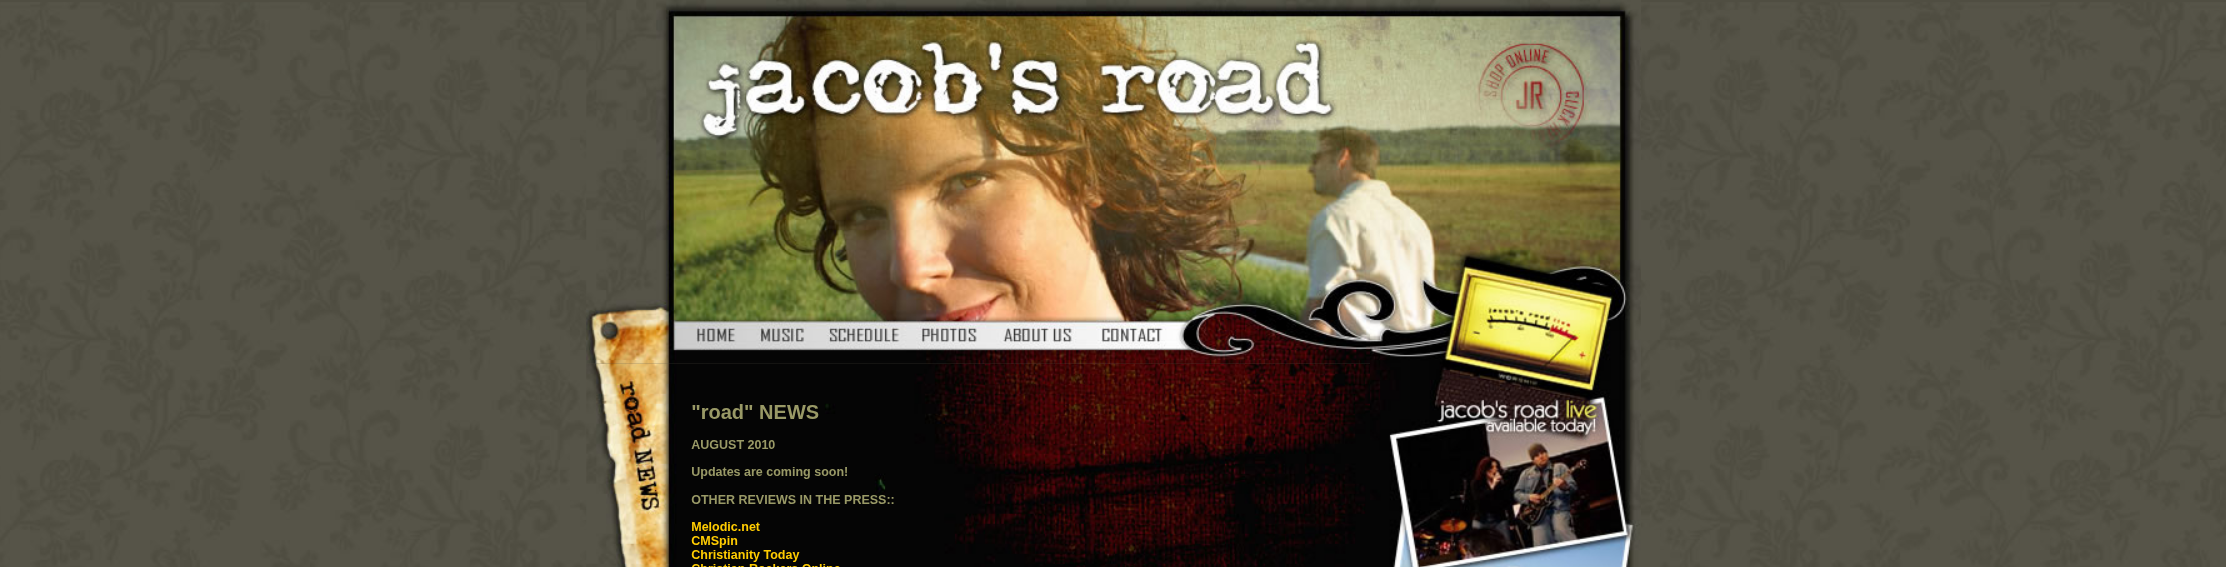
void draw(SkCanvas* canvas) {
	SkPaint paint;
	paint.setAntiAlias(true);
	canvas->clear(0xff504e42);
	canvas->drawImageRect(SkImages::DeferredFromEncodedData(SkData::MakeFromFileName("img1.png")), SkRect::MakeXYWH(0, 2, 2226, 565), SkSamplingOptions());
	canvas->drawImageRect(SkImages::DeferredFromEncodedData(SkData::MakeFromFileName("img5.png")), SkRect::MakeXYWH(685, 363, 685, 204), SkSamplingOptions());
	canvas->drawImageRect(SkImages::DeferredFromEncodedData(SkData::MakeFromFileName("img2.png")), SkRect::MakeXYWH(586, 0, 784, 364), SkSamplingOptions());
	canvas->drawImageRect(SkImages::DeferredFromEncodedData(SkData::MakeFromFileName("img3.png")), SkRect::MakeXYWH(1370, 0, 271, 567), SkSamplingOptions());
	canvas->drawImageRect(SkImages::DeferredFromEncodedData(SkData::MakeFromFileName("img4.png")), SkRect::MakeXYWH(586, 363, 99, 204), SkSamplingOptions());
	canvas->drawImageRect(SkImages::DeferredFromEncodedData(SkData::MakeFromFileName("img6.png")), SkRect::MakeXYWH(691, 404, 203, 163), SkSamplingOptions());
}
